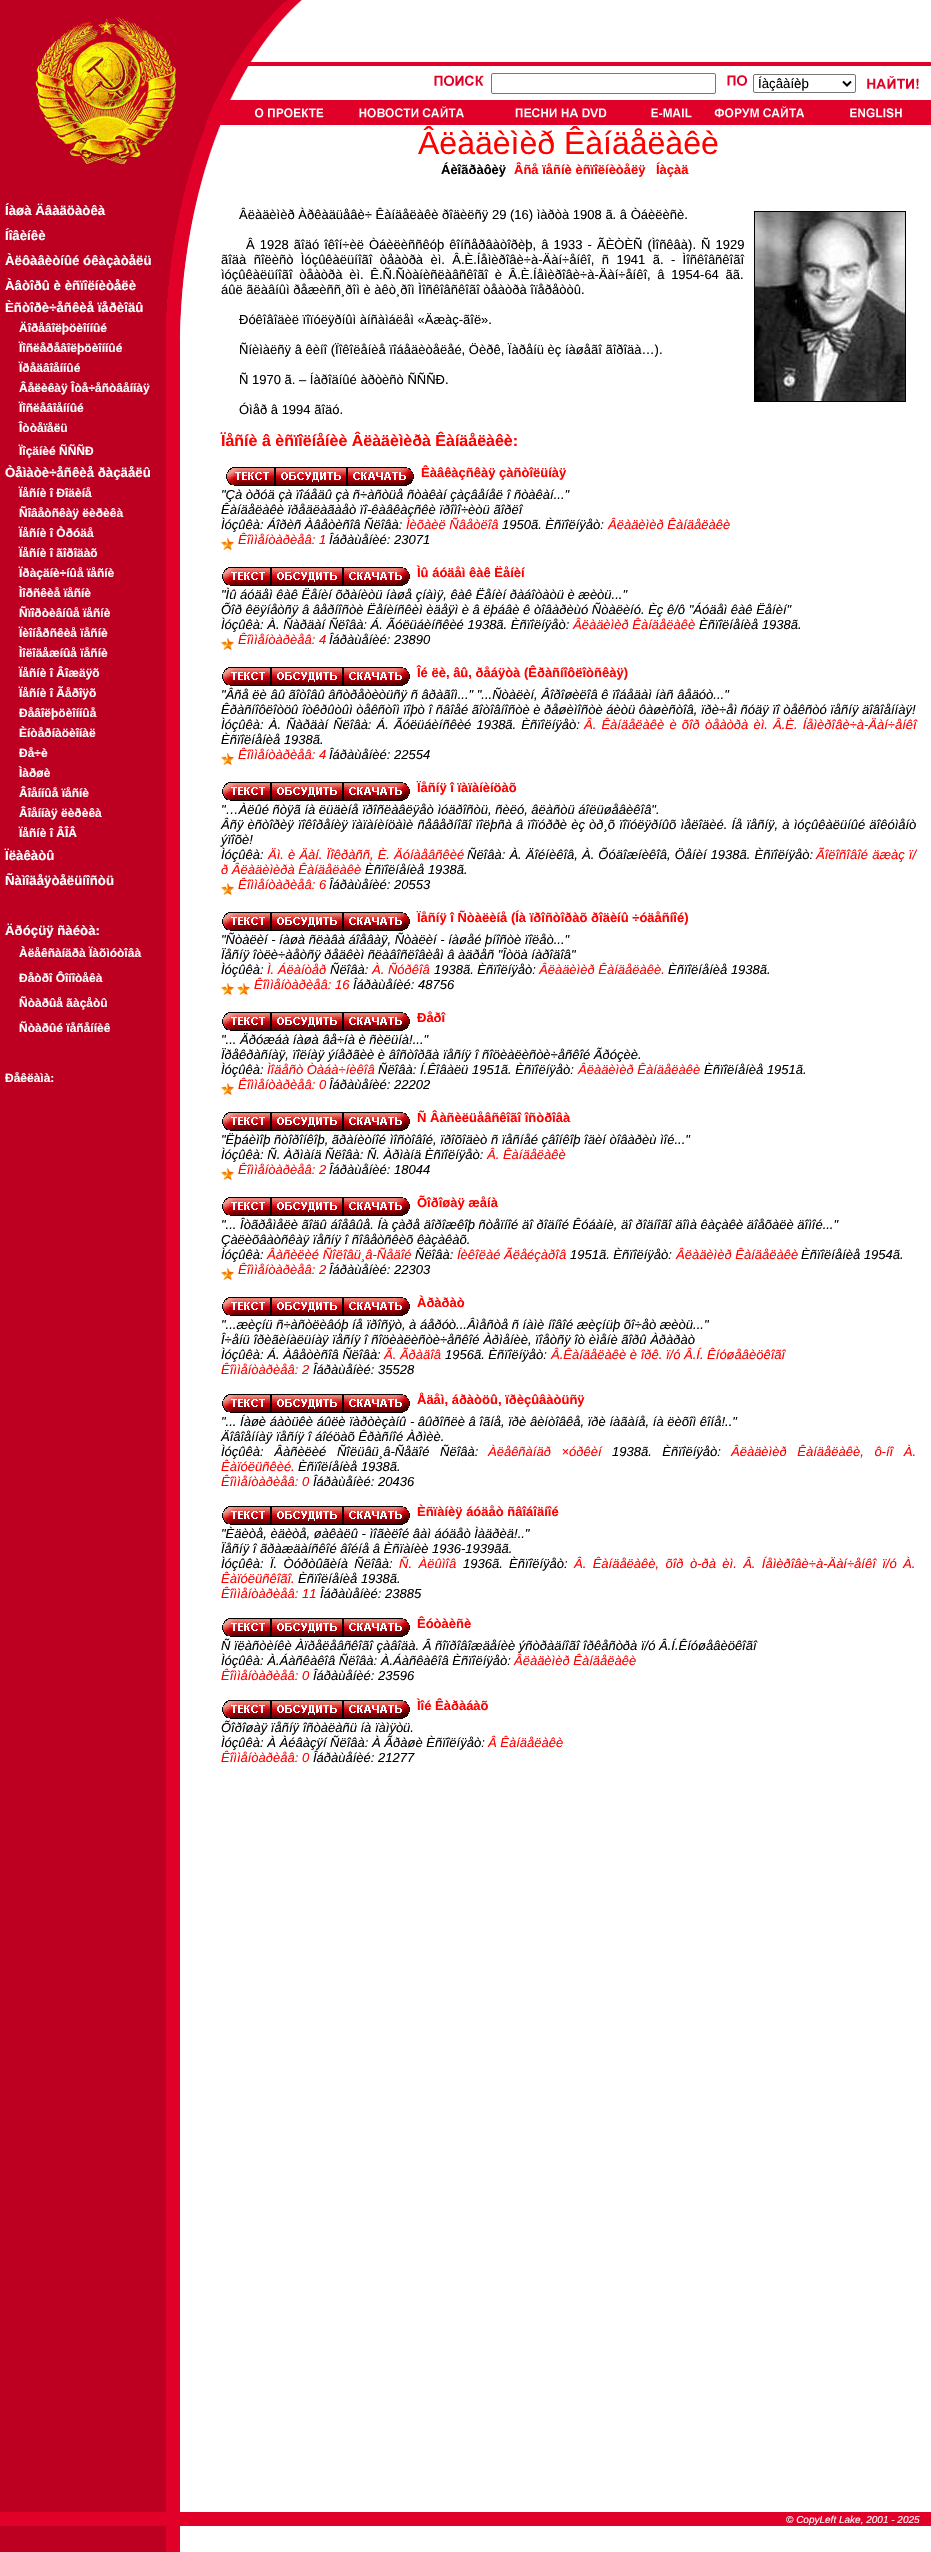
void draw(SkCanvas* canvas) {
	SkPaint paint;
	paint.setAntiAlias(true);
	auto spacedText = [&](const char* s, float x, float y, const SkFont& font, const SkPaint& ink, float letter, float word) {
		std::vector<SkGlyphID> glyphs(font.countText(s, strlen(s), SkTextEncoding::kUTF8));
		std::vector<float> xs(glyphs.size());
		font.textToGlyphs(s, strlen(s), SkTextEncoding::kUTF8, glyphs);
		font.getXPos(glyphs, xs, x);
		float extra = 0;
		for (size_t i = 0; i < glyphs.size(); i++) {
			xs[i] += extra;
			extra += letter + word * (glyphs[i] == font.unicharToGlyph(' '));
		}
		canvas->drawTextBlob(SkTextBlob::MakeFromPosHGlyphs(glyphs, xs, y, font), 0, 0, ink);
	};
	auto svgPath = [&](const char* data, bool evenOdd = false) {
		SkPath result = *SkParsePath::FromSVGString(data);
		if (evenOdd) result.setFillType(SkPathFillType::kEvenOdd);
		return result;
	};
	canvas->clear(0xffffffff);
	canvas->drawImageRect(SkImages::DeferredFromEncodedData(SkData::MakeFromFileName("img1.png")), SkRect::MakeXYWH(0, 0, 252, 66), SkSamplingOptions());
	paint.setColor(0xffe10026);
	canvas->drawRect(SkRect::MakeXYWH(252, 62, 679, 4), paint);
	canvas->drawImageRect(SkImages::DeferredFromEncodedData(SkData::MakeFromFileName("img2.png")), SkRect::MakeXYWH(252, 0, 50, 61), SkSamplingOptions());
	canvas->drawImageRect(SkImages::DeferredFromEncodedData(SkData::MakeFromFileName("img3.png")), SkRect::MakeXYWH(0, 66, 252, 59), SkSamplingOptions());
	paint.setColor(0xffe10027);
	canvas->drawRect(SkRect::MakeXYWH(252, 100, 679, 25), paint);
	canvas->drawImageRect(SkImages::DeferredFromEncodedData(SkData::MakeFromFileName("img4.png")), SkRect::MakeXYWH(434, 75, 50, 11), SkSamplingOptions());
	paint.setStroke(true);
	paint.setStrokeWidth(1);
	paint.setColor(0xff767676);
	canvas->drawRoundRect(SkRect::MakeXYWH(491.5, 73.5, 224, 20), 1.5, 1.5, paint);
	canvas->drawImageRect(SkImages::DeferredFromEncodedData(SkData::MakeFromFileName("img5.png")), SkRect::MakeXYWH(727, 75, 20, 11), SkSamplingOptions());
	canvas->drawRoundRect(SkRect::MakeXYWH(753.5, 74.5, 102, 18), 1.5, 1.5, paint);
	paint.setStrokeWidth(2);
	paint.setColor(0xff000000);
	canvas->drawPath(svgPath("M843 81.5L847 85.5L851 81.5"), paint);
	SkFont f1(fontMgr->matchFamilyStyle("Liberation Sans", SkFontStyle::Normal()), 13.25);
	f1.setSubpixel(true);
	paint.setStroke(false);
	canvas->drawString("Íàçâàíèþ", 758, 88, f1, paint);
	canvas->drawImageRect(SkImages::DeferredFromEncodedData(SkData::MakeFromFileName("img6.png")), SkRect::MakeXYWH(867, 76, 52, 13), SkSamplingOptions());
	canvas->drawImageRect(SkImages::DeferredFromEncodedData(SkData::MakeFromFileName("img7.png")), SkRect::MakeXYWH(255, 108, 69, 10), SkSamplingOptions());
	canvas->drawImageRect(SkImages::DeferredFromEncodedData(SkData::MakeFromFileName("img8.png")), SkRect::MakeXYWH(359, 106, 105, 12), SkSamplingOptions());
	canvas->drawImageRect(SkImages::DeferredFromEncodedData(SkData::MakeFromFileName("img9.png")), SkRect::MakeXYWH(515, 108, 92, 10), SkSamplingOptions());
	canvas->drawImageRect(SkImages::DeferredFromEncodedData(SkData::MakeFromFileName("img10.png")), SkRect::MakeXYWH(651, 108, 41, 10), SkSamplingOptions());
	canvas->drawImageRect(SkImages::DeferredFromEncodedData(SkData::MakeFromFileName("img11.png")), SkRect::MakeXYWH(714, 106, 91, 12), SkSamplingOptions());
	canvas->drawImageRect(SkImages::DeferredFromEncodedData(SkData::MakeFromFileName("img12.png")), SkRect::MakeXYWH(850, 108, 52, 10), SkSamplingOptions());
	paint.setColor(0xffbd0021);
	canvas->drawRect(SkRect::MakeXYWH(0, 125, 166, 2387), paint);
	canvas->drawImageRect(SkImages::DeferredFromEncodedData(SkData::MakeFromFileName("img13.png")), SkRect::MakeXYWH(49, 125, 115, 40), SkSamplingOptions());
	SkFont f2(fontMgr->matchFamilyStyle("Liberation Sans", SkFontStyle::Bold()), 13.25);
	f2.setSubpixel(true);
	paint.setColor(0xffffffff);
	canvas->drawString("Íàøà Äâàäöàòêà", 5, 215, f2, paint);
	canvas->drawString("Íîâèíêè", 5, 240, f2, paint);
	canvas->drawString("Àëôàâèòíûé óêàçàòåëü", 5, 265, f2, paint);
	canvas->drawString("Àâòîðû è èñïîëíèòåëè", 5, 290, f2, paint);
	canvas->drawString("Èñòîðè÷åñêèå ïåðèîäû", 5, 312, f2, paint);
	SkFont f3(fontMgr->matchFamilyStyle("Liberation Sans", SkFontStyle::Bold()), 12);
	f3.setSubpixel(true);
	canvas->drawString("Äîðåâîëþöèîííûé", 19, 332, f3, paint);
	canvas->drawString("Ïîñëåðåâîëþöèîííûé", 19, 352, f3, paint);
	canvas->drawString("Ïðåäâîåííûé", 19, 372, f3, paint);
	canvas->drawString("Âåëèêàÿ Îòå÷åñòâåííàÿ", 19, 392, f3, paint);
	canvas->drawString("Ïîñëåâîåííûé", 19, 412, f3, paint);
	canvas->drawString("Îòòåïåëü", 19, 432, f3, paint);
	canvas->drawString("Ïîçäíèé ÑÑÑÐ", 19, 455, f3, paint);
	canvas->drawString("Òåìàòè÷åñêèå ðàçäåëû", 5, 477, f2, paint);
	canvas->drawString("Ïåñíè î Ðîäèíå", 19, 497, f3, paint);
	canvas->drawString("Ñîâåòñêàÿ ëèðèêà", 19, 517, f3, paint);
	canvas->drawString("Ïåñíè î Òðóäå", 19, 537, f3, paint);
	canvas->drawString("Ïåñíè î ãîðîäàõ", 19, 557, f3, paint);
	canvas->drawString("Ïðàçäíè÷íûå ïåñíè", 19, 577, f3, paint);
	canvas->drawString("Ìîðñêèå ïåñíè", 19, 597, f3, paint);
	canvas->drawString("Ñïîðòèâíûå ïåñíè", 19, 617, f3, paint);
	canvas->drawString("Ïèîíåðñêèå ïåñíè", 19, 637, f3, paint);
	canvas->drawString("Ìîëîäåæíûå ïåñíè", 19, 657, f3, paint);
	canvas->drawString("Ïåñíè î Âîæäÿõ", 19, 677, f3, paint);
	canvas->drawString("Ïåñíè î Ãåðîÿõ", 19, 697, f3, paint);
	canvas->drawString("Ðåâîëþöèîííûå", 19, 717, f3, paint);
	canvas->drawString("Èíòåðíàöèîíàë", 19, 737, f3, paint);
	canvas->drawString("Ðå÷è", 19, 757, f3, paint);
	canvas->drawString("Ìàðøè", 19, 777, f3, paint);
	canvas->drawString("Âîåííûå ïåñíè", 19, 797, f3, paint);
	canvas->drawString("Âîåííàÿ ëèðèêà", 19, 817, f3, paint);
	canvas->drawString("Ïåñíè î ÂÎÂ", 19, 837, f3, paint);
	canvas->drawString("Ïëàêàòû", 5, 860, f2, paint);
	canvas->drawString("Ñàìîäåÿòåëüíîñòü", 5, 885, f2, paint);
	canvas->drawString("Äðóçüÿ ñàéòà:", 5, 935, f2, paint);
	canvas->drawString("Àëåêñàíäðà Ïàõìóòîâà", 19, 957, f3, paint);
	canvas->drawString("Ðåòðî Ôîíîòåêà", 19, 982, f3, paint);
	canvas->drawString("Ñòàðûå ãàçåòû", 19, 1007, f3, paint);
	canvas->drawString("Ñòàðûé ïåñåííèê", 19, 1032, f3, paint);
	canvas->drawString("Ðåêëàìà:", 5, 1082, f3, paint);
	paint.setColor(0xffe10027);
	canvas->drawRect(SkRect::MakeXYWH(166, 338, 14, 2174), paint);
	canvas->drawImageRect(SkImages::DeferredFromEncodedData(SkData::MakeFromFileName("img14.png")), SkRect::MakeXYWH(166, 125, 55, 213), SkSamplingOptions());
	SkFont f4(fontMgr->matchFamilyStyle("Liberation Sans", SkFontStyle::Normal()), 32);
	f4.setSubpixel(true);
	paint.setColor(0xffff0000);
	canvas->drawString("Âëàäèìèð Êàíäåëàêè", 418, 154, f4, paint);
	SkFont f5(fontMgr->matchFamilyStyle("Liberation Sans", SkFontStyle::Bold()), 13);
	f5.setSubpixel(true);
	paint.setColor(0xff000000);
	canvas->drawString("Áèîãðàôèÿ", 441, 174, f5, paint);
	paint.setColor(0xffff0000);
	canvas->drawString("Âñå ïåñíè èñïîëíèòåëÿ", 514, 174, f5, paint);
	canvas->drawString("Íàçàä", 656, 174, f5, paint);
	SkFont f6(fontMgr->matchFamilyStyle("Liberation Sans", SkFontStyle::Normal()), 13);
	f6.setSubpixel(true);
	paint.setColor(0xff000000);
	canvas->drawString("Âëàäèìèð Àðêàäüåâè÷ Êàíäåëàêè ðîäèëñÿ 29 (16) ìàðòà 1908 ã. â Òáèëèñè.", 239, 219, f6, paint);
	paint.setStroke(true);
	paint.setStrokeWidth(1);
	canvas->drawRect(SkRect::MakeXYWH(754.5, 211.5, 151, 190), paint);
	canvas->drawImageRect(SkImages::DeferredFromEncodedData(SkData::MakeFromFileName("img15.png")), SkRect::MakeXYWH(755, 212, 150, 189), SkSamplingOptions());
	paint.setStroke(false);
	spacedText("Â 1928 ãîäó îêîí÷èë Òáèëèññêóþ êîíñåðâàòîðèþ, â 1933 - ÃÈÒÈÑ (Ìîñêâà). Ñ 1929", 246, 249, f6, paint, 0, 1.5);
	spacedText("ãîäà ñîëèñò Ìóçûêàëüíîãî òåàòðà èì. Â.È.Íåìèðîâè÷à-Äàí÷åíêî, ñ 1941 ã. - Ìîñêîâñêîãî", 221, 264, f6, paint, 0, 3.75);
	spacedText("ìóçûêàëüíîãî òåàòðà èì. Ê.Ñ.Ñòàíèñëàâñêîãî è Â.È.Íåìèðîâè÷à-Äàí÷åíêî, â 1954-64 ãã.", 221, 279, f6, paint, 0, 3);
	canvas->drawString("áûë ãëàâíûì ðåæèññ¸ðîì è àêò¸ðîì Ìîñêîâñêîãî òåàòðà îïåðåòòû.", 221, 294, f6, paint);
	canvas->drawString("Ðóêîâîäèë ïîïóëÿðíûì àíñàìáëåì «Äæàç-ãîë».", 239, 324, f6, paint);
	canvas->drawString("Ñíèìàëñÿ â êèíî (Ïîêîëåíèå ïîáåäèòåëåé, Öèðê, Ïàðåíü èç íàøåãî ãîðîäà…).", 239, 354, f6, paint);
	canvas->drawString("Ñ 1970 ã. – Íàðîäíûé àðòèñò ÑÑÑÐ.", 239, 384, f6, paint);
	canvas->drawString("Óìåð â 1994 ãîäó.", 239, 414, f6, paint);
	SkFont f7(fontMgr->matchFamilyStyle("Liberation Sans", SkFontStyle::Bold()), 16);
	f7.setSubpixel(true);
	paint.setColor(0xffff0000);
	canvas->drawString("Ïåñíè â èñïîëíåíèè Âëàäèìèðà Êàíäåëàêè:", 221, 446, f7, paint);
	canvas->drawImageRect(SkImages::DeferredFromEncodedData(SkData::MakeFromFileName("img16.png")), SkRect::MakeXYWH(226, 467, 49, 19), SkSamplingOptions());
	canvas->drawImageRect(SkImages::DeferredFromEncodedData(SkData::MakeFromFileName("img17.png")), SkRect::MakeXYWH(275, 467, 72, 19), SkSamplingOptions());
	canvas->drawImageRect(SkImages::DeferredFromEncodedData(SkData::MakeFromFileName("img18.png")), SkRect::MakeXYWH(347, 467, 67, 19), SkSamplingOptions());
	canvas->drawString("Êàâêàçñêàÿ çàñòîëüíàÿ", 421, 477, f5, paint);
	SkFont f8(fontMgr->matchFamilyStyle("Liberation Sans", SkFontStyle::Italic()), 13);
	f8.setSubpixel(true);
	paint.setColor(0xff000000);
	canvas->drawString("\"Çà òðóä çà ïîáåäû çà ñ÷àñòüå ñòàêàí çàçâåíåë î ñòàêàí...\"", 221, 499, f8, paint);
	canvas->drawString("Êàíäåëàêè ïðåäëàãàåò ïî-êàâêàçñêè ïðîìî÷èòü ãîðëî", 221, 514, f8, paint);
	canvas->drawString("Ìóçûêà: Áîðèñ Àâåòèñîâ Ñëîâà:", 221, 529, f8, paint);
	paint.setColor(0xffff0000);
	canvas->drawString("Ìèõàèë Ñâåòëîâ", 406, 529, f8, paint);
	paint.setColor(0xff000000);
	canvas->drawString("1950ã. Èñïîëíÿåò:", 502, 529, f8, paint);
	paint.setColor(0xffff0000);
	canvas->drawString("Âëàäèìèð Êàíäåëàêè", 608, 529, f8, paint);
	canvas->drawImageRect(SkImages::DeferredFromEncodedData(SkData::MakeFromFileName("img19.png")), SkRect::MakeXYWH(221, 538, 13, 12), SkSamplingOptions());
	canvas->drawString("Êîììåíòàðèåâ: 1", 238, 544, f8, paint);
	paint.setColor(0xff000000);
	canvas->drawString("Îáðàùåíèé: 23071", 329, 544, f8, paint);
	canvas->drawImageRect(SkImages::DeferredFromEncodedData(SkData::MakeFromFileName("img16.png")), SkRect::MakeXYWH(222, 567, 49, 19), SkSamplingOptions());
	canvas->drawImageRect(SkImages::DeferredFromEncodedData(SkData::MakeFromFileName("img17.png")), SkRect::MakeXYWH(271, 567, 72, 19), SkSamplingOptions());
	canvas->drawImageRect(SkImages::DeferredFromEncodedData(SkData::MakeFromFileName("img18.png")), SkRect::MakeXYWH(343, 567, 67, 19), SkSamplingOptions());
	paint.setColor(0xffff0000);
	canvas->drawString("Ìû áóäåì êàê Ëåíèí", 417, 577, f5, paint);
	paint.setColor(0xff000000);
	canvas->drawString("\"Ìû áóäåì êàê Ëåíèí õðàíèòü íàøå çíàìÿ, êàê Ëåíèí ðàáîòàòü è æèòü...\"", 221, 599, f8, paint);
	canvas->drawString("Õîð êëÿíåòñÿ â âåðíîñòè Ëåíèíñêèì èäåÿì è â ëþáâè ê òîâàðèùó Ñòàëèíó. Èç ê/ô \"Áóäåì êàê Ëåíèí\"", 221, 614, f8, paint);
	canvas->drawString("Ìóçûêà: À. Ñàðäàí Ñëîâà: Á. Ãóëüáèíñêèé 1938ã. Èñïîëíÿåò:", 221, 629, f8, paint);
	paint.setColor(0xffff0000);
	canvas->drawString("Âëàäèìèð Êàíäåëàêè", 573, 629, f8, paint);
	paint.setColor(0xff000000);
	canvas->drawString("Èñïîëíåíèå 1938ã.", 699, 629, f8, paint);
	canvas->drawImageRect(SkImages::DeferredFromEncodedData(SkData::MakeFromFileName("img19.png")), SkRect::MakeXYWH(221, 638, 13, 12), SkSamplingOptions());
	paint.setColor(0xffff0000);
	canvas->drawString("Êîììåíòàðèåâ: 4", 238, 644, f8, paint);
	paint.setColor(0xff000000);
	canvas->drawString("Îáðàùåíèé: 23890", 329, 644, f8, paint);
	canvas->drawImageRect(SkImages::DeferredFromEncodedData(SkData::MakeFromFileName("img16.png")), SkRect::MakeXYWH(222, 667, 49, 19), SkSamplingOptions());
	canvas->drawImageRect(SkImages::DeferredFromEncodedData(SkData::MakeFromFileName("img17.png")), SkRect::MakeXYWH(271, 667, 72, 19), SkSamplingOptions());
	canvas->drawImageRect(SkImages::DeferredFromEncodedData(SkData::MakeFromFileName("img18.png")), SkRect::MakeXYWH(343, 667, 67, 19), SkSamplingOptions());
	paint.setColor(0xffff0000);
	canvas->drawString("Îé ëè, âû, ðåáÿòà (Êðàñíîôëîòñêàÿ)", 417, 677, f5, paint);
	paint.setColor(0xff000000);
	canvas->drawString("\"Âñå ëè âû ãîòîâû âñòðåòèòüñÿ ñ âðàãîì...\" \"...Ñòàëèí, Âîðîøèëîâ ê ïîáåäàì íàñ âåäóò...\"", 221, 699, f8, paint);
	canvas->drawString("Êðàñíîôëîòöû îòêðûòûì òåêñòîì ïîþò î ñâîåé ãîòîâíîñòè è ðåøèìîñòè áèòü ôàøèñòîâ, ïðè÷åì ñóäÿ ïî òåêñòó ïåñíÿ äîâîåííàÿ!", 221, 714, f8, paint);
	spacedText("Ìóçûêà: À. Ñàðäàí Ñëîâà: Á. Ãóëüáèíñêèé 1938ã. Èñïîëíÿåò:", 221, 729, f8, paint, 0, 1.5);
	paint.setColor(0xffff0000);
	spacedText("Â. Êàíäåëàêè è õîð òåàòðà èì. Â.È. Íåìèðîâè÷à-Äàí÷åíêî", 584, 729, f8, paint, 0, 1.5);
	paint.setColor(0xff000000);
	canvas->drawString("Èñïîëíåíèå 1938ã.", 221, 744, f8, paint);
	canvas->drawImageRect(SkImages::DeferredFromEncodedData(SkData::MakeFromFileName("img19.png")), SkRect::MakeXYWH(221, 753, 13, 12), SkSamplingOptions());
	paint.setColor(0xffff0000);
	canvas->drawString("Êîììåíòàðèåâ: 4", 238, 759, f8, paint);
	paint.setColor(0xff000000);
	canvas->drawString("Îáðàùåíèé: 22554", 329, 759, f8, paint);
	canvas->drawImageRect(SkImages::DeferredFromEncodedData(SkData::MakeFromFileName("img16.png")), SkRect::MakeXYWH(222, 782, 49, 19), SkSamplingOptions());
	canvas->drawImageRect(SkImages::DeferredFromEncodedData(SkData::MakeFromFileName("img17.png")), SkRect::MakeXYWH(271, 782, 72, 19), SkSamplingOptions());
	canvas->drawImageRect(SkImages::DeferredFromEncodedData(SkData::MakeFromFileName("img18.png")), SkRect::MakeXYWH(343, 782, 67, 19), SkSamplingOptions());
	paint.setColor(0xffff0000);
	canvas->drawString("Ïåñíÿ î ïàïàíèíöàõ", 417, 792, f5, paint);
	paint.setColor(0xff000000);
	canvas->drawString("\"…Àëûé ñòÿã íà ëüäèíå ïðîñëàâëÿåò ìóäðîñòü, ñèëó, âëàñòü áîëüøåâèêîâ\".", 221, 814, f8, paint);
	spacedText("Âñÿ èñòîðèÿ ïîêîðåíèÿ ïàïàíèíöàìè ñåâåðíîãî ïîëþñà â ïîïóððè èç òð¸õ ïîïóëÿðíûõ ìåëîäèé. Íå ïåñíÿ, à ìóçûêàëüíûé äîêóìåíò", 221, 829, f8, paint, 0, 0.5);
	canvas->drawString("ýïîõè!", 221, 844, f8, paint);
	canvas->drawString("Ìóçûêà:", 221, 859, f8, paint);
	paint.setColor(0xffff0000);
	spacedText("Äì. è Äàí. Ïîêðàññ, È. Äóíàåâñêèé", 268, 859, f8, paint, 0, 0.5);
	paint.setColor(0xff000000);
	spacedText("Ñëîâà: À. Äîéíèêîâ, À. Õóäîæíèêîâ, Öåíèí 1938ã. Èñïîëíÿåò:", 467, 859, f8, paint, 0, 0.5);
	paint.setColor(0xffff0000);
	spacedText("Ãîëîñîâîé äæàç ï/", 816, 859, f8, paint, 0, 0.5);
	canvas->drawString("ð Âëàäèìèðà Êàíäåëàêè", 221, 874, f8, paint);
	paint.setColor(0xff000000);
	canvas->drawString("Èñïîëíåíèå 1938ã.", 365, 874, f8, paint);
	canvas->drawImageRect(SkImages::DeferredFromEncodedData(SkData::MakeFromFileName("img19.png")), SkRect::MakeXYWH(221, 883, 13, 12), SkSamplingOptions());
	paint.setColor(0xffff0000);
	canvas->drawString("Êîììåíòàðèåâ: 6", 238, 889, f8, paint);
	paint.setColor(0xff000000);
	canvas->drawString("Îáðàùåíèé: 20553", 329, 889, f8, paint);
	canvas->drawImageRect(SkImages::DeferredFromEncodedData(SkData::MakeFromFileName("img16.png")), SkRect::MakeXYWH(222, 912, 49, 19), SkSamplingOptions());
	canvas->drawImageRect(SkImages::DeferredFromEncodedData(SkData::MakeFromFileName("img17.png")), SkRect::MakeXYWH(271, 912, 72, 19), SkSamplingOptions());
	canvas->drawImageRect(SkImages::DeferredFromEncodedData(SkData::MakeFromFileName("img18.png")), SkRect::MakeXYWH(343, 912, 67, 19), SkSamplingOptions());
	paint.setColor(0xffff0000);
	canvas->drawString("Ïåñíÿ î Ñòàëèíå (Íà ïðîñòîðàõ ðîäèíû ÷óäåñíîé)", 417, 922, f5, paint);
	paint.setColor(0xff000000);
	canvas->drawString("\"Ñòàëèí - íàøà ñëàâà áîåâàÿ, Ñòàëèí - íàøåé þíîñòè ïîëåò...\"", 221, 944, f8, paint);
	canvas->drawString("Ïåñíÿ îòëè÷àåòñÿ ðåäêèì ñëàâîñëîâèåì â àäðåñ \"Îòöà íàðîäîâ\"", 221, 959, f8, paint);
	canvas->drawString("Ìóçûêà:", 221, 974, f8, paint);
	paint.setColor(0xffff0000);
	canvas->drawString("Ì. Áëàíòåð", 267, 974, f8, paint);
	paint.setColor(0xff000000);
	canvas->drawString("Ñëîâà:", 330, 974, f8, paint);
	paint.setColor(0xffff0000);
	canvas->drawString("À. Ñóðêîâ", 372, 974, f8, paint);
	paint.setColor(0xff000000);
	canvas->drawString("1938ã. Èñïîëíÿåò:", 434, 974, f8, paint);
	paint.setColor(0xffff0000);
	canvas->drawString("Âëàäèìèð Êàíäåëàêè.", 539, 974, f8, paint);
	paint.setColor(0xff000000);
	canvas->drawString("Èñïîëíåíèå 1938ã.", 668, 974, f8, paint);
	canvas->drawImageRect(SkImages::DeferredFromEncodedData(SkData::MakeFromFileName("img20.png")), SkRect::MakeXYWH(221, 983, 29, 12), SkSamplingOptions());
	paint.setColor(0xffff0000);
	canvas->drawString("Êîììåíòàðèåâ: 16", 254, 989, f8, paint);
	paint.setColor(0xff000000);
	canvas->drawString("Îáðàùåíèé: 48756", 353, 989, f8, paint);
	canvas->drawImageRect(SkImages::DeferredFromEncodedData(SkData::MakeFromFileName("img16.png")), SkRect::MakeXYWH(222, 1012, 49, 19), SkSamplingOptions());
	canvas->drawImageRect(SkImages::DeferredFromEncodedData(SkData::MakeFromFileName("img17.png")), SkRect::MakeXYWH(271, 1012, 72, 19), SkSamplingOptions());
	canvas->drawImageRect(SkImages::DeferredFromEncodedData(SkData::MakeFromFileName("img18.png")), SkRect::MakeXYWH(343, 1012, 67, 19), SkSamplingOptions());
	paint.setColor(0xffff0000);
	canvas->drawString("Ðåðî", 417, 1022, f5, paint);
	paint.setColor(0xff000000);
	canvas->drawString("\"... Äðóæáà íàøà âå÷íà è ñèëüíà!...\"", 221, 1044, f8, paint);
	canvas->drawString("Ïðåêðàñíàÿ, ïîëíàÿ ýíåðãèè è âîñòîðãà ïåñíÿ î ñîöèàëèñòè÷åñêîé Ãðóçèè.", 221, 1059, f8, paint);
	canvas->drawString("Ìóçûêà:", 221, 1074, f8, paint);
	paint.setColor(0xffff0000);
	canvas->drawString("Ìîäåñò Òàáà÷íèêîâ", 267, 1074, f8, paint);
	paint.setColor(0xff000000);
	canvas->drawString("Ñëîâà: Í.Êîâàëü 1951ã. Èñïîëíÿåò:", 378, 1074, f8, paint);
	paint.setColor(0xffff0000);
	canvas->drawString("Âëàäèìèð Êàíäåëàêè", 578, 1074, f8, paint);
	paint.setColor(0xff000000);
	canvas->drawString("Èñïîëíåíèå 1951ã.", 704, 1074, f8, paint);
	canvas->drawImageRect(SkImages::DeferredFromEncodedData(SkData::MakeFromFileName("img19.png")), SkRect::MakeXYWH(221, 1083, 13, 12), SkSamplingOptions());
	paint.setColor(0xffff0000);
	canvas->drawString("Êîììåíòàðèåâ: 0", 238, 1089, f8, paint);
	paint.setColor(0xff000000);
	canvas->drawString("Îáðàùåíèé: 22202", 329, 1089, f8, paint);
	canvas->drawImageRect(SkImages::DeferredFromEncodedData(SkData::MakeFromFileName("img16.png")), SkRect::MakeXYWH(222, 1112, 49, 19), SkSamplingOptions());
	canvas->drawImageRect(SkImages::DeferredFromEncodedData(SkData::MakeFromFileName("img17.png")), SkRect::MakeXYWH(271, 1112, 72, 19), SkSamplingOptions());
	canvas->drawImageRect(SkImages::DeferredFromEncodedData(SkData::MakeFromFileName("img18.png")), SkRect::MakeXYWH(343, 1112, 67, 19), SkSamplingOptions());
	paint.setColor(0xffff0000);
	canvas->drawString("Ñ Âàñèëüåâñêîãî îñòðîâà", 417, 1122, f5, paint);
	paint.setColor(0xff000000);
	canvas->drawString("\"Ëþáèìîþ ñòîðîíêîþ, ãðàíèòíîé ìîñòîâîé, ïðîõîäèò ñ ïåñíåé çâîíêîþ îäèí òîâàðèù ìîé...\"", 221, 1144, f8, paint);
	canvas->drawString("Ìóçûêà: Ñ. Àðìàíä Ñëîâà: Ñ. Àðìàíä Èñïîëíÿåò:", 221, 1159, f8, paint);
	paint.setColor(0xffff0000);
	canvas->drawString("Â. Êàíäåëàêè", 487, 1159, f8, paint);
	canvas->drawImageRect(SkImages::DeferredFromEncodedData(SkData::MakeFromFileName("img19.png")), SkRect::MakeXYWH(221, 1168, 13, 12), SkSamplingOptions());
	canvas->drawString("Êîììåíòàðèåâ: 2", 238, 1174, f8, paint);
	paint.setColor(0xff000000);
	canvas->drawString("Îáðàùåíèé: 18044", 329, 1174, f8, paint);
	canvas->drawImageRect(SkImages::DeferredFromEncodedData(SkData::MakeFromFileName("img16.png")), SkRect::MakeXYWH(222, 1197, 49, 19), SkSamplingOptions());
	canvas->drawImageRect(SkImages::DeferredFromEncodedData(SkData::MakeFromFileName("img17.png")), SkRect::MakeXYWH(271, 1197, 72, 19), SkSamplingOptions());
	canvas->drawImageRect(SkImages::DeferredFromEncodedData(SkData::MakeFromFileName("img18.png")), SkRect::MakeXYWH(343, 1197, 67, 19), SkSamplingOptions());
	paint.setColor(0xffff0000);
	canvas->drawString("Õîðîøàÿ æåíà", 417, 1207, f5, paint);
	paint.setColor(0xff000000);
	canvas->drawString("\"... Îòãðåìåëè ãîäû áîåâûå. Íà çàðå äîðîæêîþ ñòåïíîé äî ðîäíîé Êóáàíè, äî ðîäíîãî äîìà êàçàêè äîåõàëè äîìîé...\"", 221, 1229, f8, paint);
	canvas->drawString("Çàëèõâàòñêàÿ ïåñíÿ î ñîâåòñêèõ êàçàêàõ.", 221, 1244, f8, paint);
	canvas->drawString("Ìóçûêà:", 221, 1259, f8, paint);
	paint.setColor(0xffff0000);
	canvas->drawString("Âàñèëèé Ñîëîâü¸â-Ñåäîé", 267, 1259, f8, paint);
	paint.setColor(0xff000000);
	canvas->drawString("Ñëîâà:", 415, 1259, f8, paint);
	paint.setColor(0xffff0000);
	canvas->drawString("Íèêîëàé Ãëåéçàðîâ", 457, 1259, f8, paint);
	paint.setColor(0xff000000);
	canvas->drawString("1951ã. Èñïîëíÿåò:", 570, 1259, f8, paint);
	paint.setColor(0xffff0000);
	canvas->drawString("Âëàäèìèð Êàíäåëàêè", 676, 1259, f8, paint);
	paint.setColor(0xff000000);
	canvas->drawString("Èñïîëíåíèå 1954ã.", 801, 1259, f8, paint);
	canvas->drawImageRect(SkImages::DeferredFromEncodedData(SkData::MakeFromFileName("img19.png")), SkRect::MakeXYWH(221, 1268, 13, 12), SkSamplingOptions());
	paint.setColor(0xffff0000);
	canvas->drawString("Êîììåíòàðèåâ: 2", 238, 1274, f8, paint);
	paint.setColor(0xff000000);
	canvas->drawString("Îáðàùåíèé: 22303", 329, 1274, f8, paint);
	canvas->drawImageRect(SkImages::DeferredFromEncodedData(SkData::MakeFromFileName("img16.png")), SkRect::MakeXYWH(222, 1297, 49, 19), SkSamplingOptions());
	canvas->drawImageRect(SkImages::DeferredFromEncodedData(SkData::MakeFromFileName("img17.png")), SkRect::MakeXYWH(271, 1297, 72, 19), SkSamplingOptions());
	canvas->drawImageRect(SkImages::DeferredFromEncodedData(SkData::MakeFromFileName("img18.png")), SkRect::MakeXYWH(343, 1297, 67, 19), SkSamplingOptions());
	paint.setColor(0xffff0000);
	canvas->drawString("Àðàðàò", 417, 1307, f5, paint);
	paint.setColor(0xff000000);
	canvas->drawString("\"...æèçíü ñ÷àñòëèâóþ íå ïðîñÿò, à áåðóò...Âìåñòå ñ íàìè íîâîé æèçíüþ õî÷åò æèòü...\"", 221, 1329, f8, paint);
	canvas->drawString("Î÷åíü îðèãèíàëüíàÿ ïåñíÿ î ñîöèàëèñòè÷åñêîé Àðìåíèè, ïîåòñÿ îò èìåíè ãîðû Àðàðàò", 221, 1344, f8, paint);
	canvas->drawString("Ìóçûêà: Á. Àâåòèñîâ Ñëîâà:", 221, 1359, f8, paint);
	paint.setColor(0xffff0000);
	canvas->drawString("Ã. Ãðàäîâ", 384, 1359, f8, paint);
	paint.setColor(0xff000000);
	canvas->drawString("1956ã. Èñïîëíÿåò:", 445, 1359, f8, paint);
	paint.setColor(0xffff0000);
	canvas->drawString("Â.Êàíäåëàêè è îðê. ï/ó Â.Í. Êíóøåâèöêîãî", 551, 1359, f8, paint);
	canvas->drawString("Êîììåíòàðèåâ: 2", 221, 1374, f8, paint);
	paint.setColor(0xff000000);
	canvas->drawString("Îáðàùåíèé: 35528", 313, 1374, f8, paint);
	canvas->drawImageRect(SkImages::DeferredFromEncodedData(SkData::MakeFromFileName("img16.png")), SkRect::MakeXYWH(222, 1394, 49, 19), SkSamplingOptions());
	canvas->drawImageRect(SkImages::DeferredFromEncodedData(SkData::MakeFromFileName("img17.png")), SkRect::MakeXYWH(271, 1394, 72, 19), SkSamplingOptions());
	canvas->drawImageRect(SkImages::DeferredFromEncodedData(SkData::MakeFromFileName("img18.png")), SkRect::MakeXYWH(343, 1394, 67, 19), SkSamplingOptions());
	paint.setColor(0xffff0000);
	canvas->drawString("Åäåì, áðàòöû, ïðèçûâàòüñÿ", 417, 1404, f5, paint);
	paint.setColor(0xff000000);
	canvas->drawString("\"... Íàøè áàòüêè áûëè ïàðòèçàíû - âûðîñëè â îãíå, ïðè âèíòîâêå, ïðè íàãàíå, íà ëèõîì êîíå!..\"", 221, 1426, f8, paint);
	canvas->drawString("Äîâîåííàÿ ïåñíÿ î áîéöàõ Êðàñíîé Àðìèè.", 221, 1441, f8, paint);
	spacedText("Ìóçûêà: Âàñèëèé Ñîëüâü¸â-Ñåäîé Ñëîâà:", 221, 1456, f8, paint, 0, 7);
	paint.setColor(0xffff0000);
	spacedText("Àëåêñàíäð ×óðêèí", 488, 1456, f8, paint, 0, 7);
	paint.setColor(0xff000000);
	spacedText("1938ã. Èñïîëíÿåò:", 612, 1456, f8, paint, 0, 7);
	paint.setColor(0xffff0000);
	spacedText("Âëàäèìèð Êàíäåëàêè, ô-íî À.", 731, 1456, f8, paint, 0, 7);
	canvas->drawString("Êàïóëüñêèé.", 221, 1471, f8, paint);
	paint.setColor(0xff000000);
	canvas->drawString("Èñïîëíåíèå 1938ã.", 298, 1471, f8, paint);
	paint.setColor(0xffff0000);
	canvas->drawString("Êîììåíòàðèåâ: 0", 221, 1486, f8, paint);
	paint.setColor(0xff000000);
	canvas->drawString("Îáðàùåíèé: 20436", 313, 1486, f8, paint);
	canvas->drawImageRect(SkImages::DeferredFromEncodedData(SkData::MakeFromFileName("img16.png")), SkRect::MakeXYWH(222, 1506, 49, 19), SkSamplingOptions());
	canvas->drawImageRect(SkImages::DeferredFromEncodedData(SkData::MakeFromFileName("img17.png")), SkRect::MakeXYWH(271, 1506, 72, 19), SkSamplingOptions());
	canvas->drawImageRect(SkImages::DeferredFromEncodedData(SkData::MakeFromFileName("img18.png")), SkRect::MakeXYWH(343, 1506, 67, 19), SkSamplingOptions());
	paint.setColor(0xffff0000);
	canvas->drawString("Èñïàíèÿ áóäåò ñâîáîäíîé", 417, 1516, f5, paint);
	paint.setColor(0xff000000);
	canvas->drawString("\"Èäèòå, èäèòå, øàêàëû - ìîãèëîé âàì áóäåò Ìàäðèä!..\"", 221, 1538, f8, paint);
	canvas->drawString("Ïåñíÿ î ãðàæäàíñêîé âîéíå â Èñïàíèè 1936-1939ãã.", 221, 1553, f8, paint);
	spacedText("Ìóçûêà: Ï. Òóðòûãèíà Ñëîâà:", 221, 1568, f8, paint, 0, 2.75);
	paint.setColor(0xffff0000);
	spacedText("Ñ. Àëûìîâ", 399, 1568, f8, paint, 0, 3);
	paint.setColor(0xff000000);
	spacedText("1936ã. Èñïîëíÿåò:", 463, 1568, f8, paint, 0, 2.75);
	paint.setColor(0xffff0000);
	spacedText("Â. Êàíäåëàêè, õîð ò-ðà èì. Â. Íåìèðîâè÷à-Äàí÷åíêî ï/ó À.", 574, 1568, f8, paint, 0, 2.75);
	canvas->drawString("Êàïóëüñêîãî.", 221, 1583, f8, paint);
	paint.setColor(0xff000000);
	canvas->drawString("Èñïîëíåíèå 1938ã.", 298, 1583, f8, paint);
	paint.setColor(0xffff0000);
	canvas->drawString("Êîììåíòàðèåâ: 11", 221, 1598, f8, paint);
	paint.setColor(0xff000000);
	canvas->drawString("Îáðàùåíèé: 23885", 320, 1598, f8, paint);
	canvas->drawImageRect(SkImages::DeferredFromEncodedData(SkData::MakeFromFileName("img16.png")), SkRect::MakeXYWH(222, 1618, 49, 19), SkSamplingOptions());
	canvas->drawImageRect(SkImages::DeferredFromEncodedData(SkData::MakeFromFileName("img17.png")), SkRect::MakeXYWH(271, 1618, 72, 19), SkSamplingOptions());
	canvas->drawImageRect(SkImages::DeferredFromEncodedData(SkData::MakeFromFileName("img18.png")), SkRect::MakeXYWH(343, 1618, 67, 19), SkSamplingOptions());
	paint.setColor(0xffff0000);
	canvas->drawString("Êóòàèñè", 417, 1628, f5, paint);
	paint.setColor(0xff000000);
	canvas->drawString("Ñ ïëàñòèíêè Àïðåëåâñêîãî çàâîäà. Â ñîïðîâîæäåíèè ýñòðàäíîãî îðêåñòðà ï/ó Â.Í.Êíóøåâèöêîãî", 221, 1650, f8, paint);
	canvas->drawString("Ìóçûêà: À.Áàñêàêîâ Ñëîâà: À.Áàñêàêîâ Èñïîëíÿåò:", 221, 1665, f8, paint);
	paint.setColor(0xffff0000);
	canvas->drawString("Âëàäèìèð Êàíäåëàêè", 514, 1665, f8, paint);
	canvas->drawString("Êîììåíòàðèåâ: 0", 221, 1680, f8, paint);
	paint.setColor(0xff000000);
	canvas->drawString("Îáðàùåíèé: 23596", 313, 1680, f8, paint);
	canvas->drawImageRect(SkImages::DeferredFromEncodedData(SkData::MakeFromFileName("img16.png")), SkRect::MakeXYWH(222, 1700, 49, 19), SkSamplingOptions());
	canvas->drawImageRect(SkImages::DeferredFromEncodedData(SkData::MakeFromFileName("img17.png")), SkRect::MakeXYWH(271, 1700, 72, 19), SkSamplingOptions());
	canvas->drawImageRect(SkImages::DeferredFromEncodedData(SkData::MakeFromFileName("img18.png")), SkRect::MakeXYWH(343, 1700, 67, 19), SkSamplingOptions());
	paint.setColor(0xffff0000);
	canvas->drawString("Ìîé Êàðàáàõ", 417, 1710, f5, paint);
	paint.setColor(0xff000000);
	canvas->drawString("Õîðîøàÿ ïåñíÿ îñòàëàñü íà ïàìÿòü.", 221, 1732, f8, paint);
	canvas->drawString("Ìóçûêà: À Àéâàçÿí Ñëîâà: À Ãðàøè Èñïîëíÿåò:", 221, 1747, f8, paint);
	paint.setColor(0xffff0000);
	canvas->drawString("Â Êàíäåëàêè", 488, 1747, f8, paint);
	canvas->drawString("Êîììåíòàðèåâ: 0", 221, 1762, f8, paint);
	paint.setColor(0xff000000);
	canvas->drawString("Îáðàùåíèé: 21277", 313, 1762, f8, paint);
	paint.setColor(0xffe10027);
	canvas->drawRect(SkRect::MakeXYWH(0, 2512, 931, 14), paint);
	SkFont f9(fontMgr->matchFamilyStyle("Liberation Sans", SkFontStyle::Italic()), 10);
	f9.setSubpixel(true);
	paint.setColor(0xffffffff);
	canvas->drawString("© CopyLeft Lake, 2001 - 2025", 786, 2523, f9, paint);
	paint.setColor(0xffbd0021);
	canvas->drawRect(SkRect::MakeXYWH(0, 2526, 166, 26), paint);
	paint.setColor(0xffe10027);
	canvas->drawRect(SkRect::MakeXYWH(166, 2526, 14, 26), paint);
}
